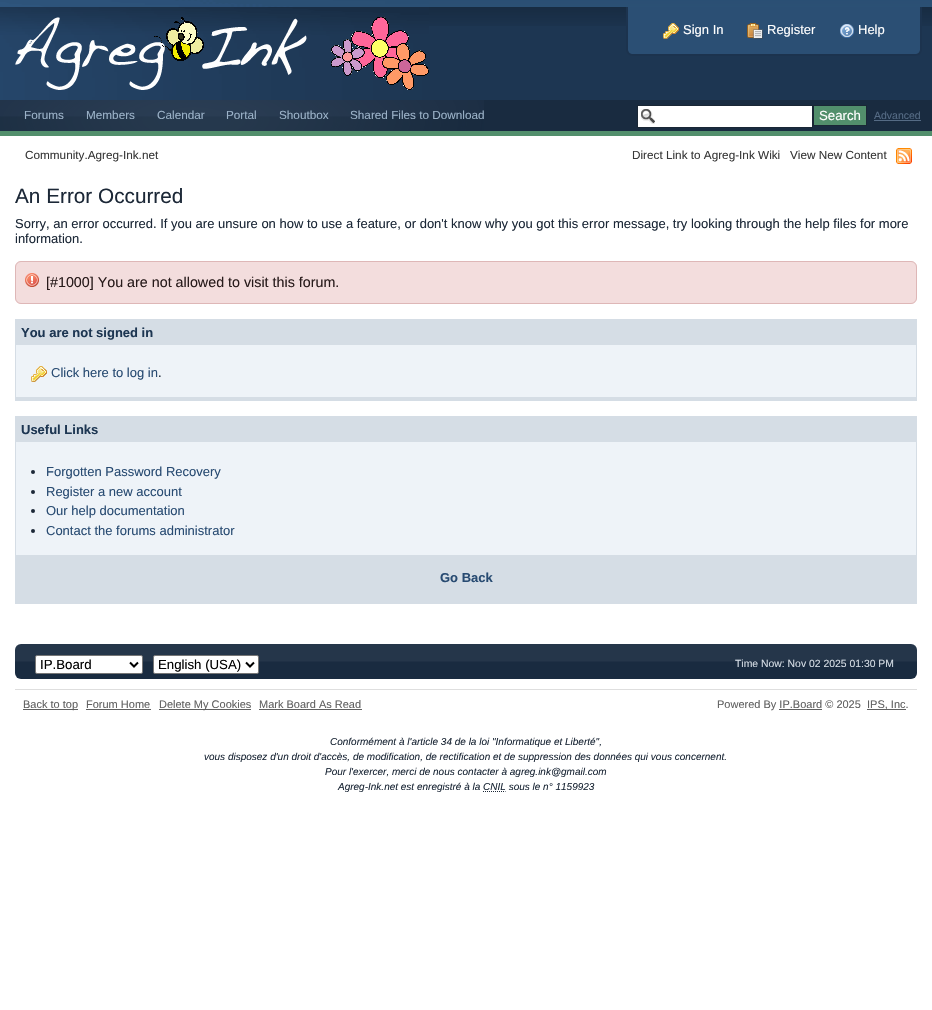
void draw(SkCanvas* canvas) {
	SkPaint paint;
	paint.setAntiAlias(true);
	auto svgPath = [&](const char* data, bool evenOdd = false) {
		SkPath result = *SkParsePath::FromSVGString(data);
		if (evenOdd) result.setFillType(SkPathFillType::kEvenOdd);
		return result;
	};
	canvas->clear(0xffffffff);
	paint.setColor(0xff1d3652);
	canvas->drawRect(SkRect::MakeXYWH(429, 26, 503, 74), paint);
	canvas->drawImageRect(SkImages::DeferredFromEncodedData(SkData::MakeFromFileName("img1.png")), SkRect::MakeXYWH(429, 0, 503, 26), SkSamplingOptions());
	canvas->drawImageRect(SkImages::DeferredFromEncodedData(SkData::MakeFromFileName("img2.png")), SkRect::MakeXYWH(0, 0, 429, 100), SkSamplingOptions());
	paint.setColor(0xff2b4f74);
	canvas->drawPath(svgPath("M628 7H920V50C920 52 918 54 916 54H632C630 54 628 52 628 50Z"), paint);
	paint.setColor(0xff1c334e);
	canvas->drawPath(svgPath("M626 7H922V50C922 53 919 56 916 56H632C629 56 626 53 626 50ZM628 7H920V50C920 52 918 54 916 54H632C630 54 628 52 628 50Z", true), paint);
	canvas->drawImageRect(SkImages::DeferredFromEncodedData(SkData::MakeFromFileName("img3.png")), SkRect::MakeXYWH(663, 23, 16, 16), SkSamplingOptions());
	SkFont f1(fontMgr->matchFamilyStyle("Liberation Sans", SkFontStyle::Normal()), 13);
	f1.setSubpixel(true);
	paint.setColor(0xffffffff);
	canvas->drawString("Sign In", 683, 34, f1, paint);
	canvas->drawImageRect(SkImages::DeferredFromEncodedData(SkData::MakeFromFileName("img4.png")), SkRect::MakeXYWH(747, 23, 16, 16), SkSamplingOptions());
	canvas->drawString("Register", 767, 34, f1, paint);
	canvas->drawImageRect(SkImages::DeferredFromEncodedData(SkData::MakeFromFileName("img5.png")), SkRect::MakeXYWH(840, 24, 14, 14), SkSamplingOptions());
	canvas->drawString("Help", 858, 34, f1, paint);
	paint.setColor(0xff192b40);
	canvas->drawRect(SkRect::MakeXYWH(484, 100, 448, 31), paint);
	canvas->drawImageRect(SkImages::DeferredFromEncodedData(SkData::MakeFromFileName("img6.png")), SkRect::MakeXYWH(0, 100, 484, 31), SkSamplingOptions());
	paint.setColor(0xff528f6c);
	canvas->drawRect(SkRect::MakeXYWH(0, 131, 932, 5), paint);
	SkFont f2(fontMgr->matchFamilyStyle("Liberation Sans", SkFontStyle::Normal()), 11.75);
	f2.setSubpixel(true);
	paint.setColor(0xff9bb2c8);
	canvas->drawString("Forums", 24, 119, f2, paint);
	canvas->drawString("Members", 86, 119, f2, paint);
	canvas->drawString("Calendar", 157, 119, f2, paint);
	canvas->drawString("Portal", 226, 119, f2, paint);
	canvas->drawString("Shoutbox", 279, 119, f2, paint);
	canvas->drawString("Shared Files to Download", 350, 119, f2, paint);
	paint.setColor(0xffffffff);
	canvas->drawRect(SkRect::MakeXYWH(638, 106, 174, 21), paint);
	canvas->drawImageRect(SkImages::DeferredFromEncodedData(SkData::MakeFromFileName("img7.png")), SkRect::MakeXYWH(641, 109, 14, 15), SkSamplingOptions());
	paint.setStroke(true);
	paint.setStrokeWidth(1);
	paint.setColor(0xff1a2735);
	canvas->drawRect(SkRect::MakeXYWH(637.5, 105.5, 175, 22), paint);
	paint.setStroke(false);
	paint.setColor(0xff528f6c);
	canvas->drawRect(SkRect::MakeXYWH(813.5, 105.5, 53, 20), paint);
	paint.setStroke(true);
	paint.setColor(0xff1a2735);
	canvas->drawRect(SkRect::MakeXYWH(813.5, 105.5, 53, 20), paint);
	SkFont f3(fontMgr->matchFamilyStyle("Liberation Sans", SkFontStyle::Normal()), 13.25);
	f3.setSubpixel(true);
	paint.setStroke(false);
	paint.setColor(0xffffffff);
	canvas->drawString("Search", 819, 120, f3, paint);
	SkFont f4(fontMgr->matchFamilyStyle("Liberation Sans", SkFontStyle::Normal()), 10.5);
	f4.setSubpixel(true);
	paint.setColor(0xff556b85);
	canvas->drawString("Advanced", 874, 119, f4, paint);
	canvas->drawRect(SkRect::MakeXYWH(874, 120, 47, 1), paint);
	paint.setColor(0xff393939);
	canvas->drawString("Community.Agreg-Ink.net", 25, 159, f2, paint);
	canvas->drawString("Direct Link to Agreg-Ink Wiki", 632, 159, f2, paint);
	canvas->drawString("View New Content", 790, 159, f2, paint);
	canvas->drawImageRect(SkImages::DeferredFromEncodedData(SkData::MakeFromFileName("img8.png")), SkRect::MakeXYWH(896, 148, 16, 16), SkSamplingOptions());
	SkFont f5(fontMgr->matchFamilyStyle("Liberation Sans", SkFontStyle::Normal()), 20.75);
	f5.setSubpixel(true);
	paint.setColor(0xff1c2837);
	canvas->drawString("An Error Occurred", 15, 203, f5, paint);
	canvas->drawString("Sorry, an error occurred. If you are unsure on how to use a feature, or don't know why you got this error message, try looking through the help files for more", 15, 228, f1, paint);
	canvas->drawString("information.", 15, 243, f1, paint);
	paint.setColor(0xfff3dddd);
	canvas->drawRoundRect(SkRect::MakeXYWH(15, 261, 902, 43), 6, 6, paint);
	canvas->drawImageRect(SkImages::DeferredFromEncodedData(SkData::MakeFromFileName("img9.png")), SkRect::MakeXYWH(25, 273, 14, 14), SkSamplingOptions());
	paint.setStroke(true);
	paint.setColor(0xffdeb7b7);
	canvas->drawRoundRect(SkRect::MakeXYWH(15.5, 261.5, 901, 42), 5.5, 5.5, paint);
	SkFont f6(fontMgr->matchFamilyStyle("Liberation Sans", SkFontStyle::Normal()), 14.3);
	f6.setSubpixel(true);
	paint.setStroke(false);
	paint.setColor(0xff281b1b);
	canvas->drawString("[#1000] You are not allowed to visit this forum.", 46, 287, f6, paint);
	paint.setColor(0xffeef3f8);
	canvas->drawRect(SkRect::MakeXYWH(16, 345, 900, 52), paint);
	paint.setColor(0xffd5dde5);
	canvas->drawRect(SkRect::MakeXYWH(15, 319, 902, 1), paint);
	canvas->drawRect(SkRect::MakeXYWH(916, 319, 1, 82), paint);
	canvas->drawRect(SkRect::MakeXYWH(15, 397, 902, 4), paint);
	canvas->drawRect(SkRect::MakeXYWH(15, 319, 1, 82), paint);
	canvas->drawRect(SkRect::MakeXYWH(16, 320, 900, 25), paint);
	SkFont f7(fontMgr->matchFamilyStyle("Liberation Sans", SkFontStyle::Bold()), 13);
	f7.setSubpixel(true);
	paint.setColor(0xff1d3652);
	canvas->drawString("You are not signed in", 21, 337, f7, paint);
	canvas->drawImageRect(SkImages::DeferredFromEncodedData(SkData::MakeFromFileName("img10.png")), SkRect::MakeXYWH(31, 366, 16, 16), SkSamplingOptions());
	paint.setColor(0xff284b72);
	canvas->drawString("Click here to log in", 51, 377, f1, paint);
	paint.setColor(0xff1c2837);
	canvas->drawString(".", 158, 377, f1, paint);
	paint.setColor(0xffeef3f8);
	canvas->drawRect(SkRect::MakeXYWH(16, 442, 900, 113), paint);
	paint.setColor(0xffd5dde5);
	canvas->drawRect(SkRect::MakeXYWH(15, 416, 902, 1), paint);
	canvas->drawRect(SkRect::MakeXYWH(916, 416, 1, 188), paint);
	canvas->drawRect(SkRect::MakeXYWH(15, 600, 902, 4), paint);
	canvas->drawRect(SkRect::MakeXYWH(15, 416, 1, 188), paint);
	canvas->drawRect(SkRect::MakeXYWH(16, 417, 900, 25), paint);
	paint.setColor(0xff1d3652);
	canvas->drawString("Useful Links", 21, 434, f7, paint);
	paint.setColor(0xff1c2837);
	canvas->drawCircle(33, 472, 2, paint);
	paint.setColor(0xff284b72);
	canvas->drawString("Forgotten Password Recovery", 46, 476, f1, paint);
	paint.setColor(0xff1c2837);
	canvas->drawCircle(33, 492, 2, paint);
	paint.setColor(0xff284b72);
	canvas->drawString("Register a new account", 46, 496, f1, paint);
	paint.setColor(0xff1c2837);
	canvas->drawCircle(33, 511, 2, paint);
	paint.setColor(0xff284b72);
	canvas->drawString("Our help documentation", 46, 515, f1, paint);
	paint.setColor(0xff1c2837);
	canvas->drawCircle(33, 531, 2, paint);
	paint.setColor(0xff284b72);
	canvas->drawString("Contact the forums administrator", 46, 535, f1, paint);
	paint.setColor(0xffd5dde5);
	canvas->drawRect(SkRect::MakeXYWH(16, 555, 900, 45), paint);
	paint.setColor(0xff284b72);
	canvas->drawString("Go Back", 440, 582, f7, paint);
	paint.setColor(0xff192b40);
	canvas->drawRoundRect(SkRect::MakeXYWH(15, 644, 902, 35), 6, 6, paint);
	canvas->drawImageRect(SkImages::DeferredFromEncodedData(SkData::MakeFromFileName("img11.png")), SkRect::MakeXYWH(15, 644, 902, 18), SkSamplingOptions());
	paint.setColor(0xffffffff);
	canvas->drawRoundRect(SkRect::MakeXYWH(35.5, 655.5, 107, 18), 1.5, 1.5, paint);
	paint.setStroke(true);
	paint.setColor(0xff767676);
	canvas->drawRoundRect(SkRect::MakeXYWH(35.5, 655.5, 107, 18), 1.5, 1.5, paint);
	paint.setStrokeWidth(2);
	paint.setColor(0xff000000);
	canvas->drawPath(svgPath("M130 662.5L134 666.5L138 662.5"), paint);
	paint.setStroke(false);
	canvas->drawString("IP.Board", 40, 669, f3, paint);
	paint.setColor(0xffffffff);
	canvas->drawRoundRect(SkRect::MakeXYWH(153.5, 655.5, 105, 18), 1.5, 1.5, paint);
	paint.setStroke(true);
	paint.setStrokeWidth(1);
	paint.setColor(0xff767676);
	canvas->drawRoundRect(SkRect::MakeXYWH(153.5, 655.5, 105, 18), 1.5, 1.5, paint);
	paint.setStrokeWidth(2);
	paint.setColor(0xff000000);
	canvas->drawPath(svgPath("M246 662.5L250 666.5L254 662.5"), paint);
	paint.setStroke(false);
	canvas->drawString("English (USA)", 158, 669, f3, paint);
	SkFont f8(fontMgr->matchFamilyStyle("Liberation Sans", SkFontStyle::Normal()), 10.4);
	f8.setSubpixel(true);
	paint.setColor(0xffd5dde5);
	canvas->drawString("Time Now: Nov 02 2025 01:30 PM", 735, 667, f8, paint);
	paint.setColor(0xffdedede);
	canvas->drawRect(SkRect::MakeXYWH(15, 689, 902, 1), paint);
	paint.setColor(0xff606060);
	canvas->drawRect(SkRect::MakeXYWH(23, 709, 55, 1), paint);
	SkFont f9(fontMgr->matchFamilyStyle("Liberation Sans", SkFontStyle::Normal()), 11);
	f9.setSubpixel(true);
	canvas->drawString("Back to top", 23, 708, f9, paint);
	canvas->drawString("Forum Home", 86, 708, f9, paint);
	canvas->drawRect(SkRect::MakeXYWH(86, 709, 65, 1), paint);
	canvas->drawRect(SkRect::MakeXYWH(159, 709, 92, 1), paint);
	canvas->drawString("Delete My Cookies", 159, 708, f9, paint);
	canvas->drawString("Mark Board As Read", 259, 708, f9, paint);
	canvas->drawRect(SkRect::MakeXYWH(259, 709, 103, 1), paint);
	canvas->drawString("Powered By IP.Board © 2025", 717, 708, f9, paint);
	canvas->drawRect(SkRect::MakeXYWH(867, 709, 39, 1), paint);
	canvas->drawString("IPS, Inc.", 867, 708, f9, paint);
	canvas->drawRect(SkRect::MakeXYWH(779, 709, 43, 1), paint);
	SkFont f10(fontMgr->matchFamilyStyle("Liberation Sans", SkFontStyle::Italic()), 10);
	f10.setSubpixel(true);
	paint.setColor(0xff1c2837);
	canvas->drawString("Conformément à l'article 34 de la loi \"Informatique et Liberté\",", 330, 745, f10, paint);
	canvas->drawString("vous disposez d'un droit d'accès, de modification, de rectification et de suppression des données qui vous concernent.", 204, 760, f10, paint);
	canvas->drawString("Pour l'exercer, merci de nous contacter à agreg.ink@gmail.com", 325, 775, f10, paint);
	canvas->drawString("Agreg-Ink.net est enregistré à la CNIL sous le n° 1159923", 338, 790, f10, paint);
	paint.setStroke(true);
	paint.setStrokeWidth(1);
	paint.setPathEffect(SkDashPathEffect::Make({{1, 1}}, 0));
	canvas->drawPath(svgPath("M483 791.5H505.5"), paint);
	paint.setPathEffect(nullptr);
}
